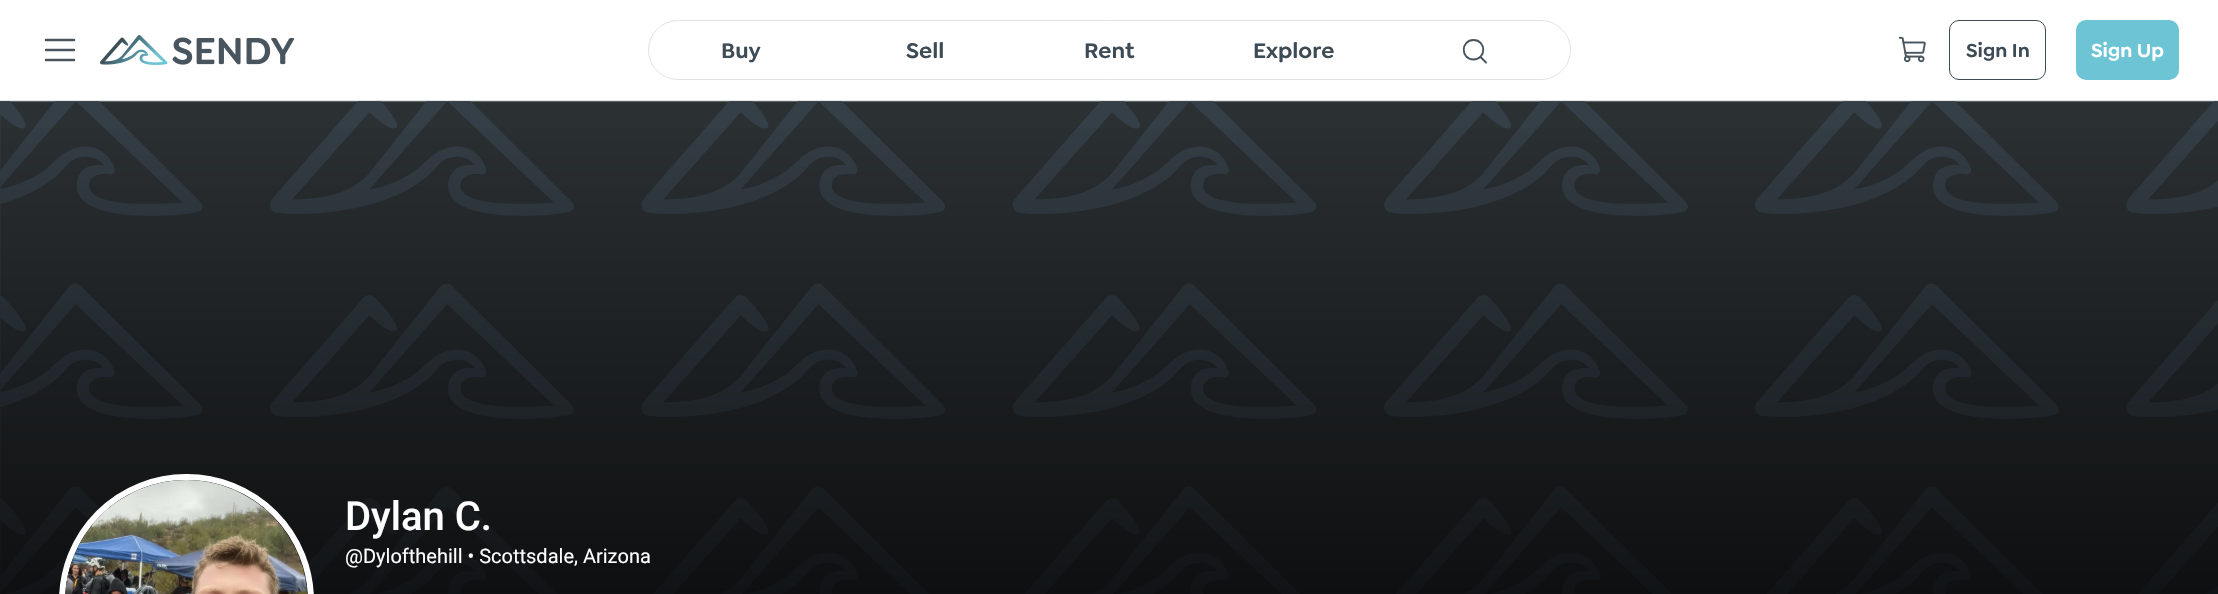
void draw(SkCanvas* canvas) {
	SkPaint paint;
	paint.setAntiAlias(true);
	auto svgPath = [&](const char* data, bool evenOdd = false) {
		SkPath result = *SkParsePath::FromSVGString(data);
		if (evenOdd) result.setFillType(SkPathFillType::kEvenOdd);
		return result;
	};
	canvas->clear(0xffffffff);
	paint.setColor(0xffdfe3e5);
	canvas->drawPath(svgPath("M0 100V101H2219V1V100Z"), paint);
	paint.setStroke(true);
	paint.setStrokeWidth(2.5);
	paint.setStrokeCap(SkPaint::kRound_Cap);
	paint.setStrokeJoin(SkPaint::kRound_Join);
	paint.setColor(0xff48555e);
	canvas->drawPath(svgPath("M46 50H74M46 40H74M46 60H74"), paint);
	canvas->drawImageRect(SkImages::DeferredFromEncodedData(SkData::MakeFromFileName("img1.png")), SkRect::MakeXYWH(100, 35, 195, 30), SkSamplingOptions());
	paint.setStrokeWidth(1);
	paint.setStrokeCap(SkPaint::kButt_Cap);
	paint.setStrokeJoin(SkPaint::kMiter_Join);
	paint.setColor(0xffdfe3e5);
	canvas->drawRoundRect(SkRect::MakeXYWH(648.5, 20.5, 922, 59), 29.5, 29.5, paint);
	SkFont f1(fontMgr->matchFamilyStyle("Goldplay", SkFontStyle(600, SkFontStyle::kNormal_Width, SkFontStyle::kUpright_Slant)), 22.5);
	f1.setSubpixel(true);
	paint.setStroke(false);
	paint.setColor(0xff3d4b54);
	canvas->drawString("Buy", 721, 58, f1, paint);
	canvas->drawString("Sell", 906, 58, f1, paint);
	canvas->drawString("Rent", 1084, 58, f1, paint);
	canvas->drawString("Explore", 1253, 58, f1, paint);
	paint.setStroke(true);
	paint.setStrokeWidth(1.9);
	paint.setStrokeCap(SkPaint::kRound_Cap);
	paint.setStrokeJoin(SkPaint::kRound_Join);
	paint.setColor(0xff48555e);
	canvas->drawPath(svgPath("M1473.5 59.5C1486.5 59.5 1486.5 40 1473.5 40C1460.5 40 1460.5 59.5 1473.5 59.5ZM1480.5 57L1486 62.5"), paint);
	canvas->drawImageRect(SkImages::DeferredFromEncodedData(SkData::MakeFromFileName("img2.png")), SkRect::MakeXYWH(1899, 36, 27, 27), SkSamplingOptions());
	paint.setStrokeWidth(1);
	paint.setStrokeCap(SkPaint::kButt_Cap);
	paint.setStrokeJoin(SkPaint::kMiter_Join);
	paint.setColor(0xff3d4b54);
	canvas->drawRoundRect(SkRect::MakeXYWH(1949.5, 20.5, 96, 59), 9.5, 9.5, paint);
	SkFont f2(fontMgr->matchFamilyStyle("Goldplay", SkFontStyle(600, SkFontStyle::kNormal_Width, SkFontStyle::kUpright_Slant)), 20);
	f2.setSubpixel(true);
	paint.setStroke(false);
	canvas->drawString("Sign In", 1966, 57, f2, paint);
	paint.setColor(0xff6cc4d4);
	canvas->drawRoundRect(SkRect::MakeXYWH(2076, 20, 103, 60), 10, 10, paint);
	paint.setColor(0xffffffff);
	canvas->drawString("Sign Up", 2091, 57, f2, paint);
	canvas->drawImageRect(SkImages::DeferredFromEncodedData(SkData::MakeFromFileName("img3.png")), SkRect::MakeXYWH(0, 101, 2218, 493), SkSamplingOptions());
	{
		const SkColor colors[] = {0x00000000, 0xb3000000};
		const float stops[] = {0, 1};
		const SkPoint ends[] = {{1109, 101}, {1109, 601}};
		paint.setShader(SkGradientShader::MakeLinear(ends, colors, stops, 2, SkTileMode::kClamp));
		paint.setAlpha(255);
	}
	canvas->drawRect(SkRect::MakeXYWH(0, 128, 2218, 466), paint);
	paint.setStroke(true);
	paint.setStrokeWidth(6);
	paint.setShader(nullptr);
	paint.setColor(0xffffffff);
	canvas->drawRoundRect(SkRect::MakeXYWH(62, 477, 249, 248), 124.5, 124.5, paint);
	canvas->drawImageRect(SkImages::DeferredFromEncodedData(SkData::MakeFromFileName("img4.png")), SkRect::MakeXYWH(65, 480, 242, 114), SkSamplingOptions());
	SkFont f3(fontMgr->matchFamilyStyle("Roboto", SkFontStyle(500, SkFontStyle::kNormal_Width, SkFontStyle::kUpright_Slant)), 40);
	f3.setSubpixel(true);
	paint.setStroke(false);
	canvas->drawString("Dylan C.", 345, 530, f3, paint);
	SkFont f4(fontMgr->matchFamilyStyle("Roboto", SkFontStyle::Normal()), 20);
	f4.setSubpixel(true);
	canvas->drawString("@Dylofthehill • Scottsdale, Arizona", 345, 563, f4, paint);
}
